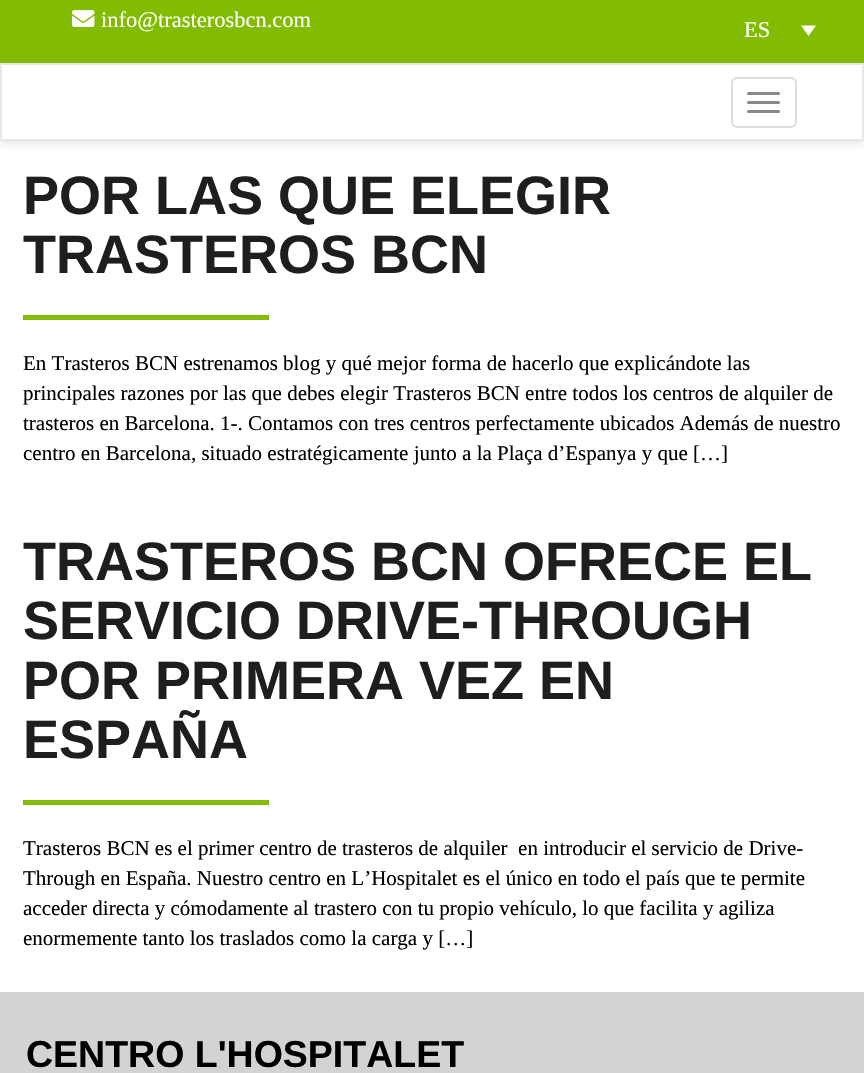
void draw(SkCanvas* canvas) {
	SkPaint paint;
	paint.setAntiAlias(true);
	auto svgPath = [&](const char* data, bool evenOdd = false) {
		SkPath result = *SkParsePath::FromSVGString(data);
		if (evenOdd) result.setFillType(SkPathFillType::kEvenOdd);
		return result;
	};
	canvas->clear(0xffffffff);
	paint.setColor(0xff81bc00);
	canvas->drawRect(SkRect::MakeXYWH(0, 0, 864, 63), paint);
	canvas->drawImageRect(SkImages::DeferredFromEncodedData(SkData::MakeFromFileName("img1.png")), SkRect::MakeXYWH(72, 10, 23, 17), SkSamplingOptions());
	SkFont f1(fontMgr->matchFamilyStyle("Liberation Serif", SkFontStyle::Normal()), 22.5);
	f1.setSubpixel(true);
	paint.setColor(0xffffffff);
	canvas->drawString("info@trasterosbcn.com", 101, 27, f1, paint);
	canvas->drawString("ES", 744, 37, f1, paint);
	canvas->drawPath(svgPath("M801 25.5H816L808.5 36Z"), paint);
	paint.setColor(0x17000000);
	paint.setMaskFilter(SkMaskFilter::MakeBlur(kNormal_SkBlurStyle, 4));
	canvas->drawRect(SkRect::MakeXYWH(0, 66, 864, 78), paint);
	paint.setMaskFilter(nullptr);
	paint.setColor(0xffffffff);
	canvas->drawRect(SkRect::MakeXYWH(1, 64, 862, 76), paint);
	paint.setStroke(true);
	paint.setStrokeWidth(2);
	paint.setColor(0xffe7e7e7);
	canvas->drawRect(SkRect::MakeXYWH(1, 64, 862, 76), paint);
	paint.setColor(0xffdddddd);
	canvas->drawRoundRect(SkRect::MakeXYWH(732, 78, 64, 49), 5, 5, paint);
	paint.setStroke(false);
	paint.setColor(0xff888888);
	canvas->drawRoundRect(SkRect::MakeXYWH(747, 92, 33, 3), 1.5, 1.5, paint);
	canvas->drawRoundRect(SkRect::MakeXYWH(747, 101, 33, 3), 1.5, 1.5, paint);
	canvas->drawRoundRect(SkRect::MakeXYWH(747, 110, 33, 3), 1.5, 1.5, paint);
	SkFont f2(fontMgr->matchFamilyStyle("Liberation Sans", SkFontStyle::Bold()), 54);
	f2.setSubpixel(true);
	paint.setColor(0xff1e1e1e);
	canvas->drawString("POR LAS QUE ELEGIR", 23, 214, f2, paint);
	canvas->drawString("TRASTEROS BCN", 23, 273, f2, paint);
	paint.setColor(0xff81bc00);
	canvas->drawRect(SkRect::MakeXYWH(23, 315, 246, 5), paint);
	SkFont f3(fontMgr->matchFamilyStyle("Liberation Serif", SkFontStyle::Normal()), 21);
	f3.setSubpixel(true);
	paint.setColor(0xff000000);
	canvas->drawString("En Trasteros BCN estrenamos blog y qué mejor forma de hacerlo que explicándote las", 23, 370, f3, paint);
	canvas->drawString("principales razones por las que debes elegir Trasteros BCN entre todos los centros de alquiler de", 23, 400, f3, paint);
	canvas->drawString("trasteros en Barcelona. 1-. Contamos con tres centros perfectamente ubicados Además de nuestro", 23, 430, f3, paint);
	canvas->drawString("centro en Barcelona, situado estratégicamente junto a la Plaça d’Espanya y que […]", 23, 460, f3, paint);
	paint.setColor(0xff1e1e1e);
	canvas->drawString("TRASTEROS BCN OFRECE EL", 23, 580, f2, paint);
	canvas->drawString("SERVICIO DRIVE-THROUGH", 23, 639, f2, paint);
	canvas->drawString("POR PRIMERA VEZ EN", 23, 699, f2, paint);
	canvas->drawString("ESPAÑA", 23, 758, f2, paint);
	paint.setColor(0xff81bc00);
	canvas->drawRect(SkRect::MakeXYWH(23, 800, 246, 5), paint);
	paint.setColor(0xff000000);
	canvas->drawString("Trasteros BCN es el primer centro de trasteros de alquiler  en introducir el servicio de Drive-", 23, 855, f3, paint);
	canvas->drawString("Through en España. Nuestro centro en L’Hospitalet es el único en todo el país que te permite", 23, 885, f3, paint);
	canvas->drawString("acceder directa y cómodamente al trastero con tu propio vehículo, lo que facilita y agiliza", 23, 915, f3, paint);
	canvas->drawString("enormemente tanto los traslados como la carga y […]", 23, 945, f3, paint);
	paint.setColor(0xffd3d3d3);
	canvas->drawRect(SkRect::MakeXYWH(0, 992, 864, 81), paint);
	SkFont f4(fontMgr->matchFamilyStyle("Liberation Sans", SkFontStyle::Bold()), 37.5);
	f4.setSubpixel(true);
	paint.setColor(0xff000000);
	canvas->drawString("CENTRO L'HOSPITALET", 26, 1067, f4, paint);
}
